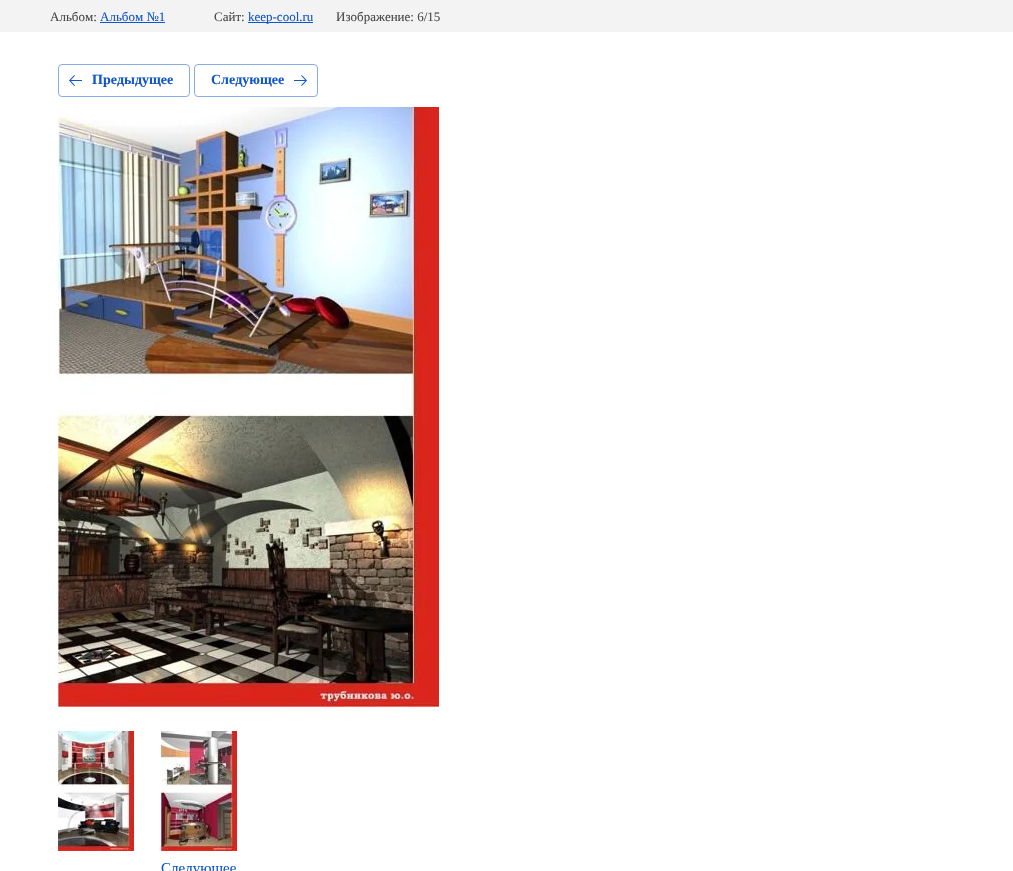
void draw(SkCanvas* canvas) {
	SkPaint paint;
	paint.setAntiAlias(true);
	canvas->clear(0xffffffff);
	paint.setColor(0xfff3f3f3);
	canvas->drawRect(SkRect::MakeXYWH(0, 0, 1013, 32), paint);
	SkFont f1(fontMgr->matchFamilyStyle("Liberation Serif", SkFontStyle::Normal()), 13);
	f1.setSubpixel(true);
	paint.setColor(0xff484848);
	canvas->drawString("Альбом:", 50, 21, f1, paint);
	paint.setColor(0xff1155cc);
	canvas->drawString("Альбом №1", 100, 21, f1, paint);
	canvas->drawRect(SkRect::MakeXYWH(100, 22, 65, 1), paint);
	paint.setColor(0xff484848);
	canvas->drawString("Сайт:", 214, 21, f1, paint);
	paint.setColor(0xff1155cc);
	canvas->drawRect(SkRect::MakeXYWH(248, 22, 65, 1), paint);
	canvas->drawString("keep-cool.ru", 248, 21, f1, paint);
	paint.setColor(0xff484848);
	canvas->drawString("Изображение: 6/15", 336, 21, f1, paint);
	paint.setStroke(true);
	paint.setStrokeWidth(1);
	paint.setColor(0xff88aae6);
	canvas->drawRoundRect(SkRect::MakeXYWH(58.5, 64.5, 131, 32), 3.5, 3.5, paint);
	canvas->drawImageRect(SkImages::DeferredFromEncodedData(SkData::MakeFromFileName("img1.png")), SkRect::MakeXYWH(69, 75, 13, 11), SkSamplingOptions());
	SkFont f2(fontMgr->matchFamilyStyle("Liberation Serif", SkFontStyle::Bold()), 14);
	f2.setSubpixel(true);
	paint.setStroke(false);
	paint.setColor(0xff1155cc);
	canvas->drawString("Предыдущее", 92, 84, f2, paint);
	paint.setStroke(true);
	paint.setColor(0xff88aae6);
	canvas->drawRoundRect(SkRect::MakeXYWH(194.5, 64.5, 123, 32), 3.5, 3.5, paint);
	paint.setStroke(false);
	paint.setColor(0xff1155cc);
	canvas->drawString("Следующее", 211, 84, f2, paint);
	canvas->drawImageRect(SkImages::DeferredFromEncodedData(SkData::MakeFromFileName("img2.png")), SkRect::MakeXYWH(294, 75, 13, 11), SkSamplingOptions());
	canvas->drawImageRect(SkImages::DeferredFromEncodedData(SkData::MakeFromFileName("img3.png")), SkRect::MakeXYWH(58, 107, 381, 600), SkSamplingOptions());
	canvas->drawImageRect(SkImages::DeferredFromEncodedData(SkData::MakeFromFileName("img4.png")), SkRect::MakeXYWH(58, 731, 76, 120), SkSamplingOptions());
	canvas->drawImageRect(SkImages::DeferredFromEncodedData(SkData::MakeFromFileName("img5.png")), SkRect::MakeXYWH(161, 731, 76, 120), SkSamplingOptions());
	SkFont f3(fontMgr->matchFamilyStyle("Liberation Serif", SkFontStyle::Normal()), 15);
	f3.setSubpixel(true);
	canvas->drawString("Следующее", 161, 873, f3, paint);
}
